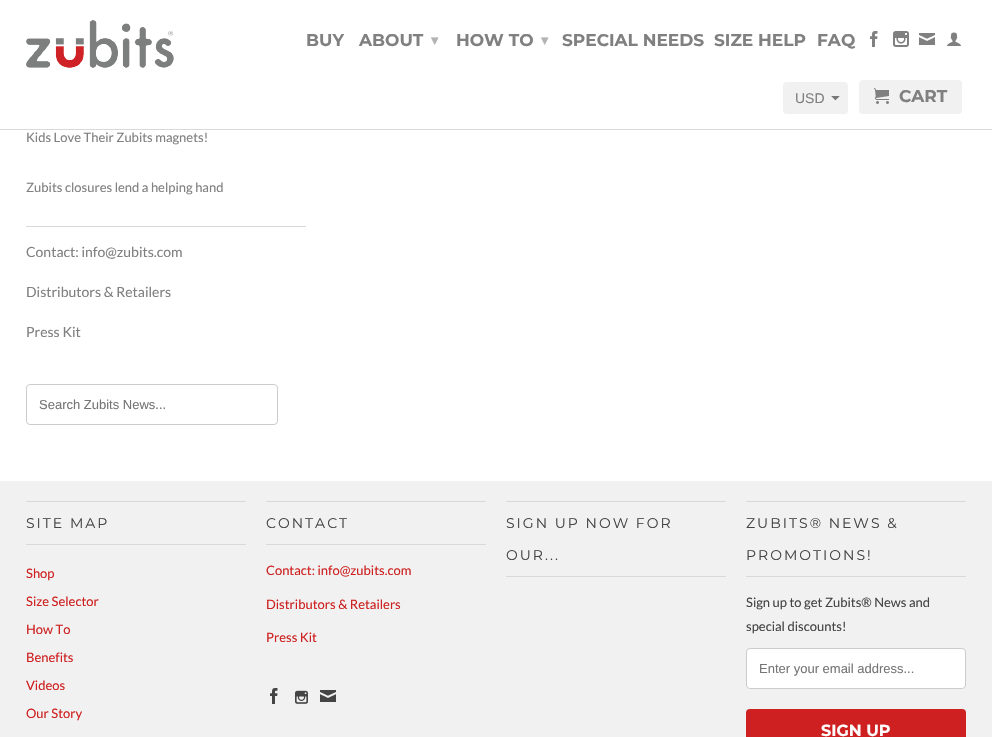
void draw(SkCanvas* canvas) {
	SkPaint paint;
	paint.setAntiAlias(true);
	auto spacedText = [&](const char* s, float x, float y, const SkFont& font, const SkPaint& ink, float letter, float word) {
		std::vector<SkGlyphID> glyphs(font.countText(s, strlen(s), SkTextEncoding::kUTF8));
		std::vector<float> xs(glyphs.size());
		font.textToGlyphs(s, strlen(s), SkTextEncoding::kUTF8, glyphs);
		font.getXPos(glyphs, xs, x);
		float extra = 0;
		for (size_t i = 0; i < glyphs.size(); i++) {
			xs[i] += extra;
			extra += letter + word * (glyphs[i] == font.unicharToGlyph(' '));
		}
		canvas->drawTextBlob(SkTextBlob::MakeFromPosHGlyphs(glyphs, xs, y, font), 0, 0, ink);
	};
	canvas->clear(0xffffffff);
	paint.setColor(0xffdbd8d8);
	canvas->drawRect(SkRect::MakeXYWH(0, 129, 992, 1), paint);
	canvas->drawImageRect(SkImages::DeferredFromEncodedData(SkData::MakeFromFileName("img1.png")), SkRect::MakeXYWH(26, 20, 148, 48), SkSamplingOptions());
	SkFont f1(fontMgr->matchFamilyStyle("Montserrat", SkFontStyle::Bold()), 17);
	f1.setSubpixel(true);
	paint.setColor(0xff808080);
	canvas->drawString("BUY", 306, 46, f1, paint);
	canvas->drawString("ABOUT", 359, 46, f1, paint);
	SkFont f2(fontMgr->matchFamilyStyle("DejaVu Sans", SkFontStyle::Bold()), 14);
	f2.setSubpixel(true);
	paint.setColor(0xffb3b3b3);
	canvas->drawString("▾", 431, 45, f2, paint);
	paint.setColor(0xff808080);
	canvas->drawString("HOW TO", 456, 46, f1, paint);
	paint.setColor(0xffb3b3b3);
	canvas->drawString("▾", 541, 45, f2, paint);
	paint.setColor(0xff808080);
	canvas->drawString("SPECIAL NEEDS", 562, 46, f1, paint);
	canvas->drawString("SIZE HELP", 714, 46, f1, paint);
	canvas->drawString("FAQ", 817, 46, f1, paint);
	canvas->drawImageRect(SkImages::DeferredFromEncodedData(SkData::MakeFromFileName("img2.png")), SkRect::MakeXYWH(870, 31, 8, 16), SkSamplingOptions());
	canvas->drawImageRect(SkImages::DeferredFromEncodedData(SkData::MakeFromFileName("img3.png")), SkRect::MakeXYWH(893, 31, 16, 16), SkSamplingOptions());
	canvas->drawImageRect(SkImages::DeferredFromEncodedData(SkData::MakeFromFileName("img4.png")), SkRect::MakeXYWH(919, 33, 16, 12), SkSamplingOptions());
	canvas->drawImageRect(SkImages::DeferredFromEncodedData(SkData::MakeFromFileName("img5.png")), SkRect::MakeXYWH(947, 32, 14, 14), SkSamplingOptions());
	paint.setColor(0xfff1f1f1);
	canvas->drawRoundRect(SkRect::MakeXYWH(783, 82, 65, 32), 4, 4, paint);
	canvas->drawImageRect(SkImages::DeferredFromEncodedData(SkData::MakeFromFileName("img6.png")), SkRect::MakeXYWH(831, 96, 9, 5), SkSamplingOptions());
	SkFont f3(fontMgr->matchFamilyStyle("Liberation Sans", SkFontStyle::Normal()), 14);
	f3.setSubpixel(true);
	paint.setColor(0xff808080);
	canvas->drawString("USD", 795, 103, f3, paint);
	paint.setColor(0xfff1f1f1);
	canvas->drawRoundRect(SkRect::MakeXYWH(859, 80, 103, 34), 4, 4, paint);
	canvas->drawImageRect(SkImages::DeferredFromEncodedData(SkData::MakeFromFileName("img7.png")), SkRect::MakeXYWH(874, 88, 15, 16), SkSamplingOptions());
	paint.setColor(0xff808080);
	canvas->drawString("CART", 899, 102, f1, paint);
	SkFont f4(fontMgr->matchFamilyStyle("Lato", SkFontStyle::Normal()), 13);
	f4.setSubpixel(true);
	canvas->drawString("Kids Love Their Zubits magnets!", 26, 142, f4, paint);
	canvas->drawString("Zubits closures lend a helping hand", 26, 192, f4, paint);
	paint.setColor(0xffdbd8d8);
	canvas->drawRect(SkRect::MakeXYWH(26, 226, 280, 1), paint);
	SkFont f5(fontMgr->matchFamilyStyle("Lato", SkFontStyle::Normal()), 14);
	f5.setSubpixel(true);
	paint.setColor(0xff808080);
	canvas->drawString("Contact: info@zubits.com", 26, 257, f5, paint);
	canvas->drawString("Distributors & Retailers", 26, 297, f5, paint);
	canvas->drawString("Press Kit", 26, 337, f5, paint);
	paint.setStroke(true);
	paint.setStrokeWidth(1);
	paint.setColor(0xffcccccc);
	canvas->drawRoundRect(SkRect::MakeXYWH(26.5, 384.5, 251, 40), 3.5, 3.5, paint);
	SkFont f6(fontMgr->matchFamilyStyle("Liberation Sans", SkFontStyle::Normal()), 13);
	f6.setSubpixel(true);
	paint.setStroke(false);
	paint.setColor(0xff757575);
	canvas->drawString("Search Zubits News...", 39, 409, f6, paint);
	paint.setColor(0xfff1f1f1);
	canvas->drawRect(SkRect::MakeXYWH(0, 481, 992, 256), paint);
	paint.setColor(0xffdbd8d8);
	canvas->drawRect(SkRect::MakeXYWH(26, 501, 220, 1), paint);
	canvas->drawRect(SkRect::MakeXYWH(26, 544, 220, 1), paint);
	SkFont f7(fontMgr->matchFamilyStyle("Montserrat", SkFontStyle::Normal()), 14);
	f7.setSubpixel(true);
	paint.setColor(0xff444444);
	spacedText("SITE MAP", 26, 528, f7, paint, 2, 0);
	paint.setColor(0xffce2020);
	canvas->drawString("Shop", 26, 578, f4, paint);
	canvas->drawString("Size Selector", 26, 606, f4, paint);
	canvas->drawString("How To", 26, 634, f4, paint);
	canvas->drawString("Benefits", 26, 662, f4, paint);
	canvas->drawString("Videos", 26, 690, f4, paint);
	canvas->drawString("Our Story", 26, 718, f4, paint);
	paint.setColor(0xffdbd8d8);
	canvas->drawRect(SkRect::MakeXYWH(266, 501, 220, 1), paint);
	canvas->drawRect(SkRect::MakeXYWH(266, 544, 220, 1), paint);
	paint.setColor(0xff444444);
	spacedText("CONTACT", 266, 528, f7, paint, 2, 0);
	paint.setColor(0xffce2020);
	canvas->drawString("Contact: info@zubits.com", 266, 575, f4, paint);
	canvas->drawString("Distributors & Retailers", 266, 609, f4, paint);
	canvas->drawString("Press Kit", 266, 642, f4, paint);
	canvas->drawImageRect(SkImages::DeferredFromEncodedData(SkData::MakeFromFileName("img8.png")), SkRect::MakeXYWH(270, 688, 8, 16), SkSamplingOptions());
	canvas->drawImageRect(SkImages::DeferredFromEncodedData(SkData::MakeFromFileName("img9.png")), SkRect::MakeXYWH(295, 690, 13, 14), SkSamplingOptions());
	canvas->drawImageRect(SkImages::DeferredFromEncodedData(SkData::MakeFromFileName("img10.png")), SkRect::MakeXYWH(320, 690, 16, 12), SkSamplingOptions());
	paint.setColor(0xffdbd8d8);
	canvas->drawRect(SkRect::MakeXYWH(506, 501, 220, 1), paint);
	canvas->drawRect(SkRect::MakeXYWH(506, 576, 220, 1), paint);
	paint.setColor(0xff444444);
	spacedText("SIGN UP NOW FOR", 506, 528, f7, paint, 2, 0);
	spacedText("OUR...", 506, 560, f7, paint, 2, 0);
	paint.setColor(0xffdbd8d8);
	canvas->drawRect(SkRect::MakeXYWH(746, 501, 220, 1), paint);
	canvas->drawRect(SkRect::MakeXYWH(746, 576, 220, 1), paint);
	paint.setColor(0xff444444);
	spacedText("ZUBITS® NEWS &", 746, 528, f7, paint, 2, 0);
	spacedText("PROMOTIONS!", 746, 560, f7, paint, 2, 0);
	canvas->drawString("Sign up to get Zubits® News and", 746, 607, f4, paint);
	canvas->drawString("special discounts!", 746, 631, f4, paint);
	paint.setColor(0xffffffff);
	canvas->drawRoundRect(SkRect::MakeXYWH(746.5, 648.5, 219, 40), 3.5, 3.5, paint);
	paint.setStroke(true);
	paint.setColor(0xffcccccc);
	canvas->drawRoundRect(SkRect::MakeXYWH(746.5, 648.5, 219, 40), 3.5, 3.5, paint);
	paint.setStroke(false);
	paint.setColor(0xff757575);
	canvas->drawString("Enter your email address...", 759, 673, f6, paint);
	paint.setColor(0xffce2020);
	canvas->drawRoundRect(SkRect::MakeXYWH(746, 709, 220, 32), 4, 4, paint);
	SkFont f8(fontMgr->matchFamilyStyle("Montserrat", SkFontStyle::Bold()), 16);
	f8.setSubpixel(true);
	paint.setColor(0xffffffff);
	canvas->drawString("SIGN UP", 821, 736, f8, paint);
}
